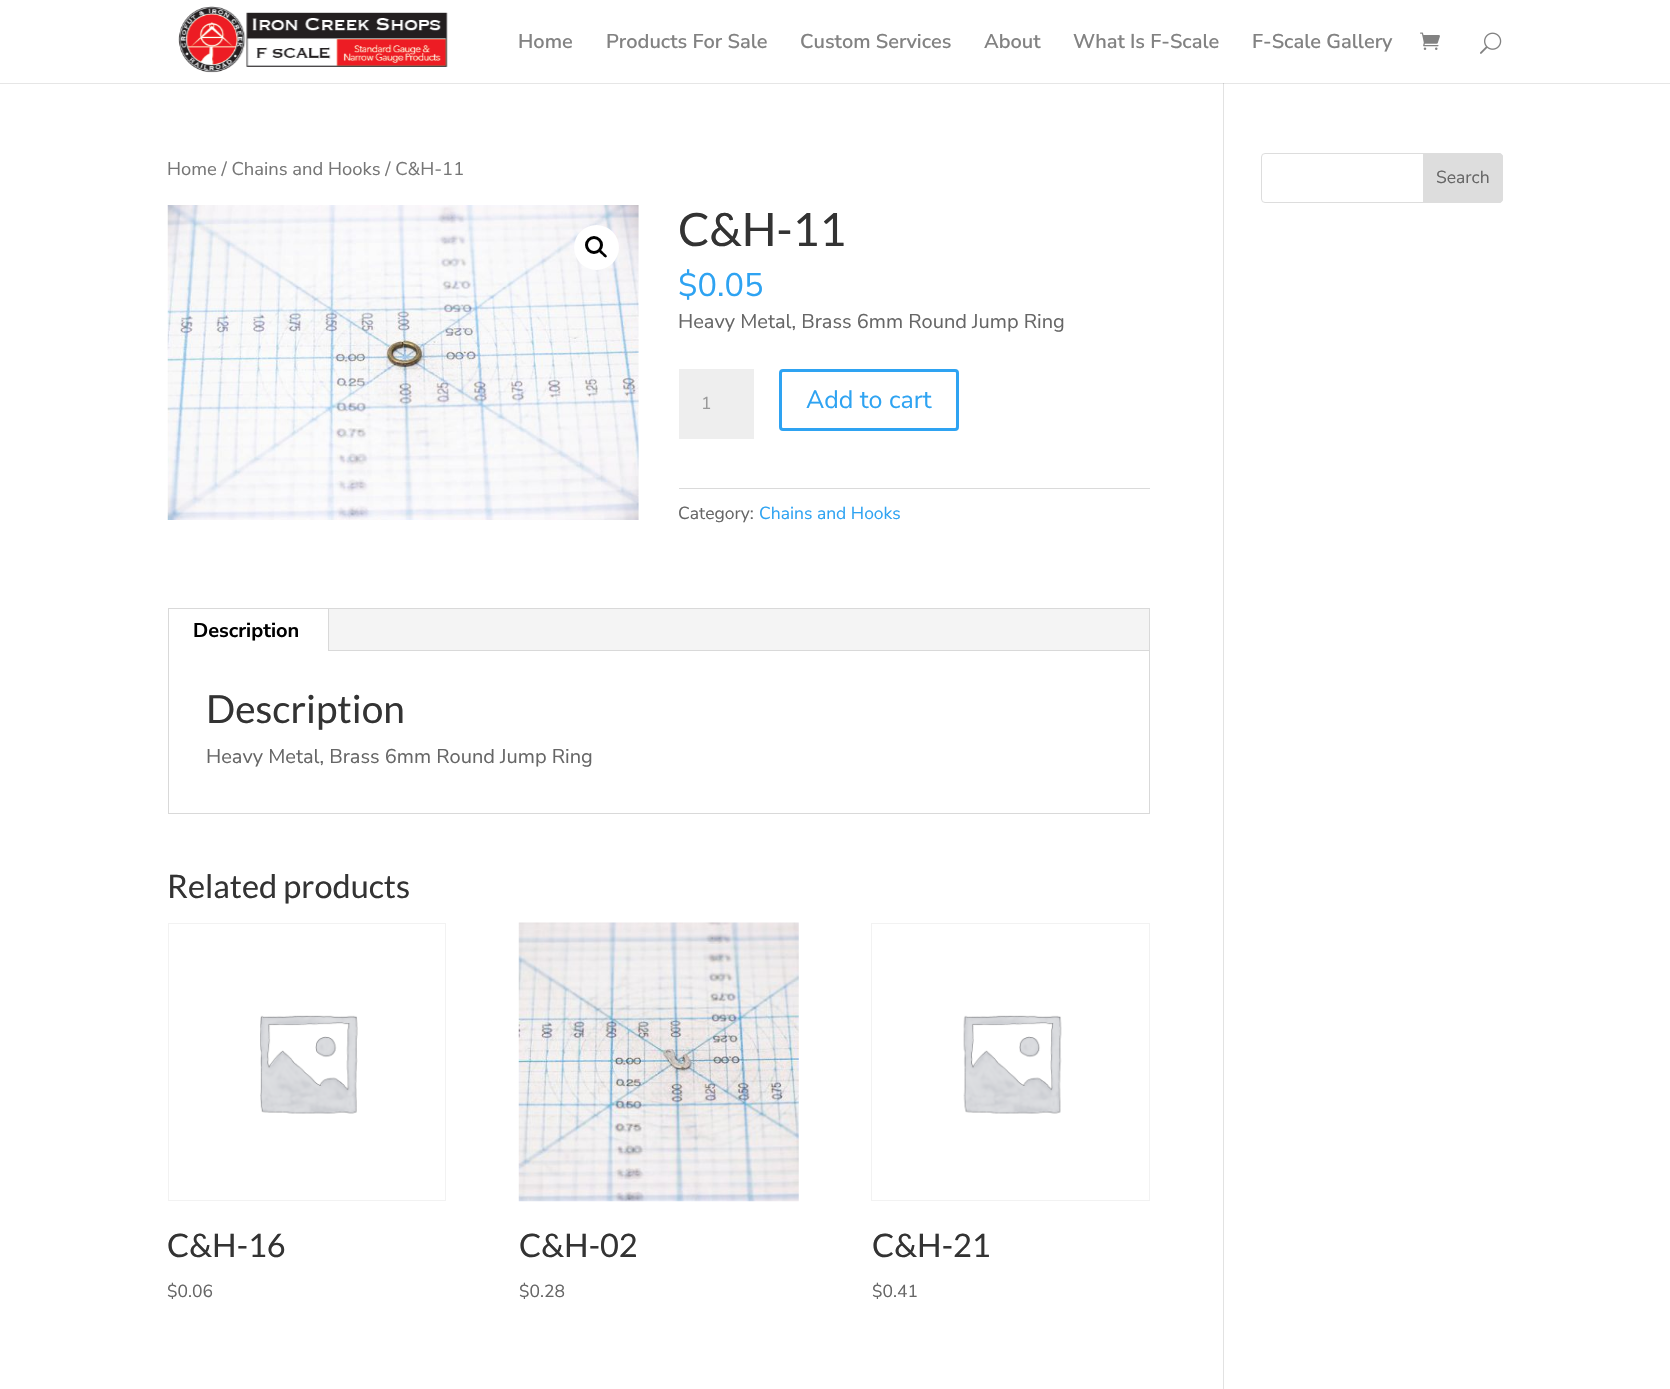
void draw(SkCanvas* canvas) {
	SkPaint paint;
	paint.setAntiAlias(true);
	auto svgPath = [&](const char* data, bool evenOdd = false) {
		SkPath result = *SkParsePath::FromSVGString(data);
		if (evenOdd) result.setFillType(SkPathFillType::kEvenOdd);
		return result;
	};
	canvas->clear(0xffffffff);
	paint.setColor(0xffe6e6e6);
	canvas->drawRect(SkRect::MakeXYWH(0, 83, 1670, 1), paint);
	paint.setColor(0xffe2e2e2);
	canvas->drawRect(SkRect::MakeXYWH(1223, 80, 1, 1309), paint);
	paint.setColor(0xffcbcbcb);
	canvas->drawRect(SkRect::MakeXYWH(1223, 82, 1, 2), paint);
	paint.setColor(0xffffffff);
	canvas->drawRect(SkRect::MakeXYWH(1223, 80, 1, 3), paint);
	canvas->drawImageRect(SkImages::DeferredFromEncodedData(SkData::MakeFromFileName("img1.png")), SkRect::MakeXYWH(178, 6, 270, 67), SkSamplingOptions());
	SkFont f1(fontMgr->matchFamilyStyle("Nunito Sans", SkFontStyle(600, SkFontStyle::kNormal_Width, SkFontStyle::kUpright_Slant)), 20);
	f1.setSubpixel(true);
	paint.setColor(0xff828282);
	canvas->drawString("Home", 518, 48, f1, paint);
	canvas->drawString("Products For Sale", 606, 48, f1, paint);
	canvas->drawString("Custom Services", 800, 48, f1, paint);
	canvas->drawString("About", 984, 48, f1, paint);
	canvas->drawString("What Is F-Scale", 1073, 48, f1, paint);
	canvas->drawString("F-Scale Gallery", 1252, 48, f1, paint);
	canvas->drawImageRect(SkImages::DeferredFromEncodedData(SkData::MakeFromFileName("img2.png")), SkRect::MakeXYWH(1420, 32, 20, 18), SkSamplingOptions());
	canvas->drawImageRect(SkImages::DeferredFromEncodedData(SkData::MakeFromFileName("img3.png")), SkRect::MakeXYWH(1480, 32, 22, 22), SkSamplingOptions());
	SkFont f2(fontMgr->matchFamilyStyle("Nunito Sans", SkFontStyle::Normal()), 18.4);
	f2.setSubpixel(true);
	paint.setColor(0xff767676);
	canvas->drawString("Home / Chains and Hooks / C&H-11", 167, 175, f2, paint);
	canvas->drawImageRect(SkImages::DeferredFromEncodedData(SkData::MakeFromFileName("img4.png")), SkRect::MakeXYWH(167, 205, 472, 315), SkSamplingOptions());
	paint.setColor(0xffffffff);
	canvas->drawCircle(596.5, 247.5, 22.5, paint);
	paint.setStroke(true);
	paint.setStrokeWidth(3);
	paint.setColor(0xff000000);
	canvas->drawCircle(594, 245, 7.5, paint);
	paint.setStroke(false);
	canvas->drawPath(svgPath("M599.5 250C601 248.5 603 252 604 253C604.5 253.5 608 256 606.5 257C605 258.5 603 255.5 602 254.5C601 254 598 251.5 599.5 250Z"), paint);
	SkFont f3(fontMgr->matchFamilyStyle("Lato", SkFontStyle::Normal()), 46);
	f3.setSubpixel(true);
	paint.setColor(0xff333333);
	canvas->drawString("C&H-11", 678, 246, f3, paint);
	SkFont f4(fontMgr->matchFamilyStyle("Nunito Sans", SkFontStyle::Normal()), 32.5);
	f4.setSubpixel(true);
	paint.setColor(0xff2ea3f2);
	canvas->drawString("$0.05", 678, 296, f4, paint);
	SkFont f5(fontMgr->matchFamilyStyle("Nunito Sans", SkFontStyle::Normal()), 20);
	f5.setSubpixel(true);
	paint.setColor(0xff666666);
	canvas->drawString("Heavy Metal, Brass 6mm Round Jump Ring", 678, 328, f5, paint);
	paint.setColor(0xffeeeeee);
	canvas->drawRect(SkRect::MakeXYWH(679, 369, 75, 70), paint);
	SkFont f6(fontMgr->matchFamilyStyle("Nunito Sans", SkFontStyle::Normal()), 17.5);
	f6.setSubpixel(true);
	paint.setColor(0xff999999);
	canvas->drawString("1", 701, 409, f6, paint);
	paint.setStroke(true);
	paint.setColor(0xff2ea3f2);
	canvas->drawRoundRect(SkRect::MakeXYWH(780.5, 370.5, 177, 59), 2.5, 2.5, paint);
	SkFont f7(fontMgr->matchFamilyStyle("Nunito Sans", SkFontStyle::Normal()), 25);
	f7.setSubpixel(true);
	paint.setStroke(false);
	canvas->drawString("Add to cart", 806, 408, f7, paint);
	paint.setColor(0xffdadada);
	canvas->drawRect(SkRect::MakeXYWH(679, 488, 471, 1), paint);
	paint.setColor(0xff666666);
	canvas->drawString("Category:", 678, 519, f6, paint);
	paint.setColor(0xff2ea3f2);
	canvas->drawString("Chains and Hooks", 759, 519, f6, paint);
	paint.setStroke(true);
	paint.setStrokeWidth(1);
	paint.setColor(0xffd9d9d9);
	canvas->drawRect(SkRect::MakeXYWH(168.5, 608.5, 981, 205), paint);
	paint.setStroke(false);
	paint.setColor(0xfff4f4f4);
	canvas->drawRect(SkRect::MakeXYWH(329, 609, 820, 41), paint);
	paint.setColor(0xffd9d9d9);
	canvas->drawRect(SkRect::MakeXYWH(328, 609, 1, 42), paint);
	SkFont f8(fontMgr->matchFamilyStyle("Nunito Sans", SkFontStyle::Bold()), 20);
	f8.setSubpixel(true);
	paint.setColor(0xff000000);
	canvas->drawString("Description", 193, 637, f8, paint);
	paint.setColor(0xffd9d9d9);
	canvas->drawRect(SkRect::MakeXYWH(329, 650, 820, 1), paint);
	SkFont f9(fontMgr->matchFamilyStyle("Lato", SkFontStyle::Normal()), 38.75);
	f9.setSubpixel(true);
	paint.setColor(0xff333333);
	canvas->drawString("Description", 206, 723, f9, paint);
	paint.setColor(0xff666666);
	canvas->drawString("Heavy Metal, Brass 6mm Round Jump Ring", 206, 763, f5, paint);
	SkFont f10(fontMgr->matchFamilyStyle("Lato", SkFontStyle::Normal()), 32.5);
	f10.setSubpixel(true);
	paint.setColor(0xff333333);
	canvas->drawString("Related products", 167, 898, f10, paint);
	paint.setStroke(true);
	paint.setColor(0xfff2f2f2);
	canvas->drawRect(SkRect::MakeXYWH(168.5, 923.5, 277, 277), paint);
	canvas->drawImageRect(SkImages::DeferredFromEncodedData(SkData::MakeFromFileName("img5.png")), SkRect::MakeXYWH(260, 1015, 98, 99), SkSamplingOptions());
	paint.setStroke(false);
	paint.setColor(0xff333333);
	canvas->drawString("C&H-16", 167, 1257, f10, paint);
	paint.setColor(0xff666666);
	canvas->drawString("$0.06", 167, 1297, f6, paint);
	canvas->drawImageRect(SkImages::DeferredFromEncodedData(SkData::MakeFromFileName("img6.png")), SkRect::MakeXYWH(518, 922, 281, 280), SkSamplingOptions());
	paint.setColor(0xff333333);
	canvas->drawString("C&H-02", 519, 1257, f10, paint);
	paint.setColor(0xff666666);
	canvas->drawString("$0.28", 519, 1297, f6, paint);
	paint.setStroke(true);
	paint.setColor(0xfff2f2f2);
	canvas->drawRect(SkRect::MakeXYWH(871.5, 923.5, 278, 277), paint);
	canvas->drawImageRect(SkImages::DeferredFromEncodedData(SkData::MakeFromFileName("img7.png")), SkRect::MakeXYWH(963, 1015, 99, 99), SkSamplingOptions());
	paint.setStroke(false);
	paint.setColor(0xff333333);
	canvas->drawString("C&H-21", 872, 1257, f10, paint);
	paint.setColor(0xff666666);
	canvas->drawString("$0.41", 872, 1297, f6, paint);
	paint.setStroke(true);
	paint.setColor(0xffdddddd);
	canvas->drawRoundRect(SkRect::MakeXYWH(1261.5, 153.5, 241, 49), 3.5, 3.5, paint);
	paint.setStroke(false);
	canvas->drawPath(svgPath("M1423.5 153.5H1499C1501 153.5 1502.5 155 1502.5 157V199C1502.5 201 1501 202.5 1499 202.5H1423.5Z"), paint);
	paint.setStroke(true);
	canvas->drawPath(svgPath("M1423.5 153.5H1499C1501 153.5 1502.5 155 1502.5 157V199C1502.5 201 1501 202.5 1499 202.5H1423.5Z"), paint);
	paint.setStroke(false);
	paint.setColor(0xff666666);
	canvas->drawString("Search", 1436, 183, f6, paint);
}
